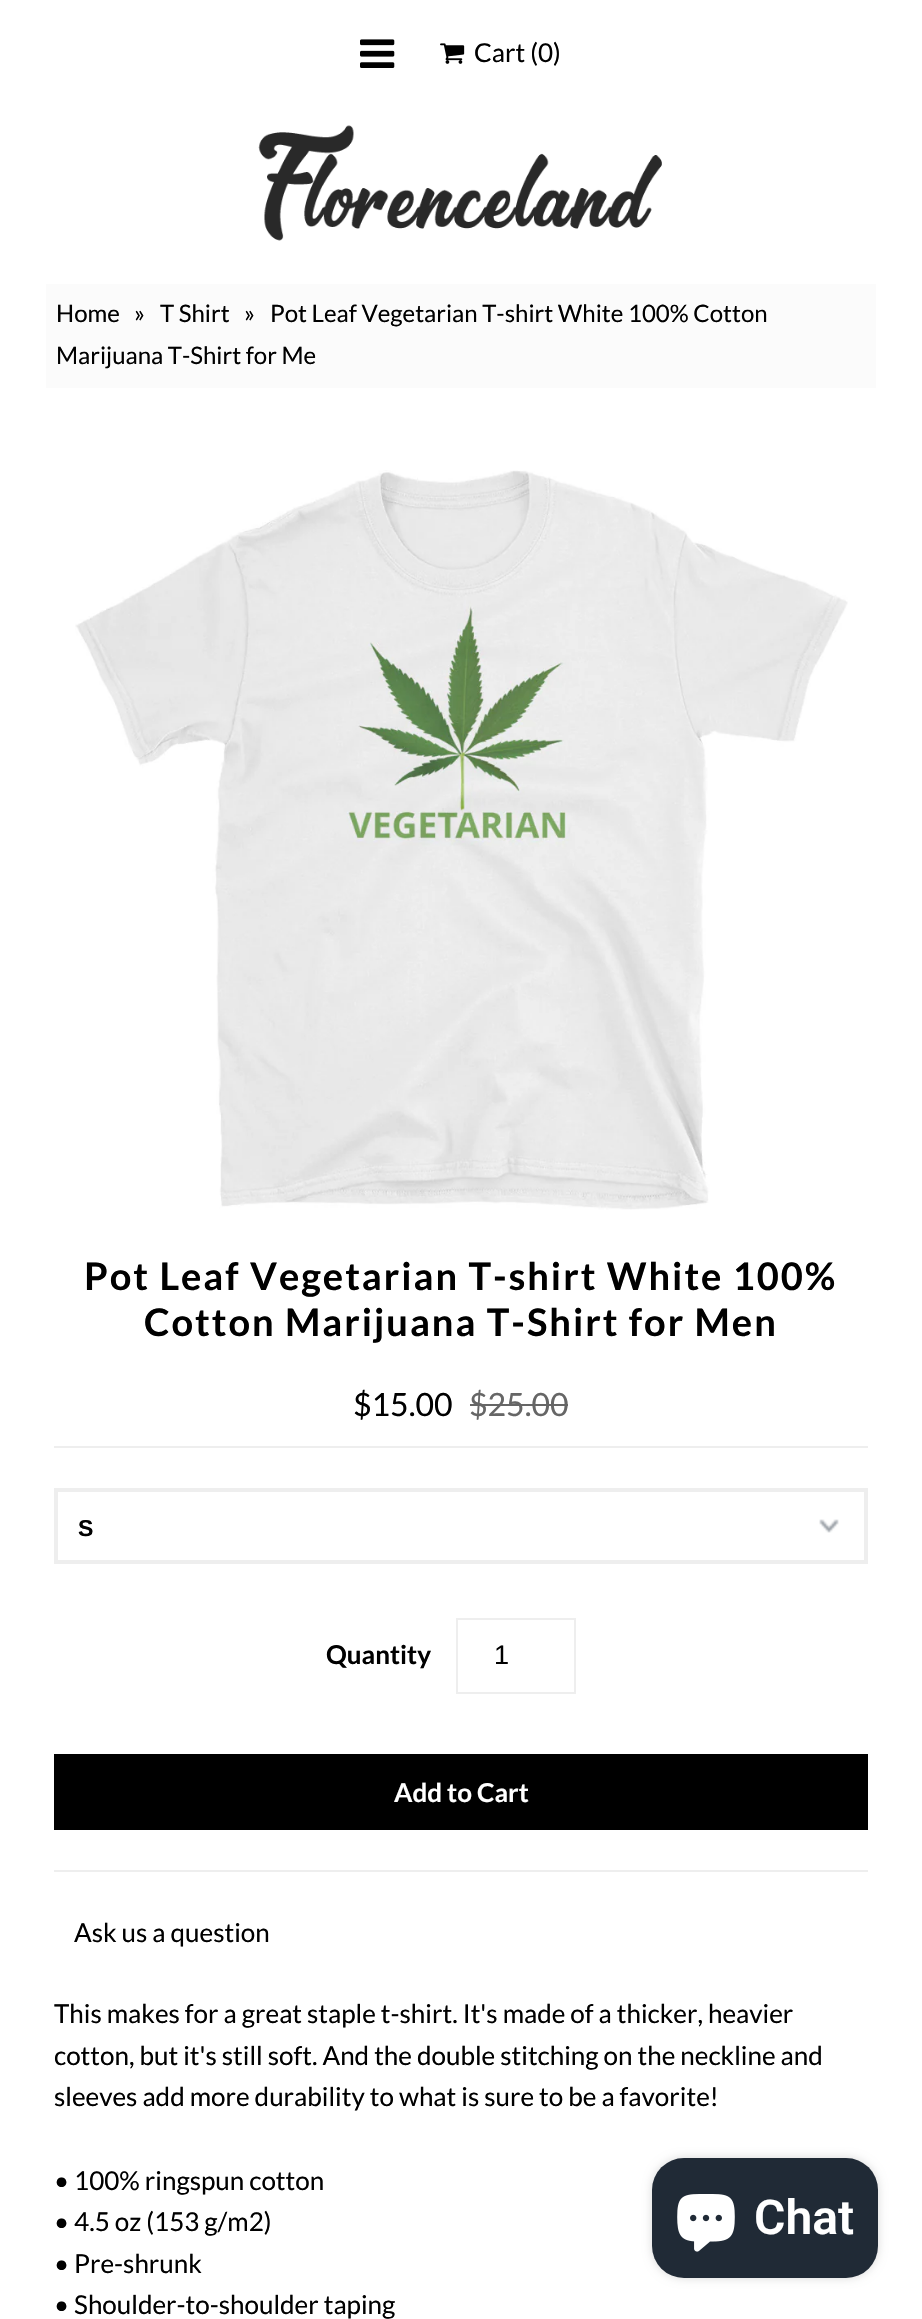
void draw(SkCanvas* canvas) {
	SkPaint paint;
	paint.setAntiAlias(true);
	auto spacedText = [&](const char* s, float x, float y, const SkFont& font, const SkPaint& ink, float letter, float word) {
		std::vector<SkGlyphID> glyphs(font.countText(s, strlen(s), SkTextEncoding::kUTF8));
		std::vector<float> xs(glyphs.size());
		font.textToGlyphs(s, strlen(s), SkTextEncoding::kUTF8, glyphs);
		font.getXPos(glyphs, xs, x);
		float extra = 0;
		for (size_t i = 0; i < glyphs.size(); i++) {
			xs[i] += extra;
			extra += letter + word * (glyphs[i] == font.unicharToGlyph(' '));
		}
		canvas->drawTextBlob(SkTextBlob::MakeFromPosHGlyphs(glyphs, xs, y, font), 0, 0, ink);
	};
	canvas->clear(0xffffffff);
	canvas->drawImageRect(SkImages::DeferredFromEncodedData(SkData::MakeFromFileName("img1.png")), SkRect::MakeXYWH(360, 39, 35, 29), SkSamplingOptions());
	canvas->drawImageRect(SkImages::DeferredFromEncodedData(SkData::MakeFromFileName("img2.png")), SkRect::MakeXYWH(440, 43, 25, 21), SkSamplingOptions());
	SkFont f1(fontMgr->matchFamilyStyle("Lato", SkFontStyle::Normal()), 26);
	f1.setSubpixel(true);
	paint.setColor(0xff000000);
	canvas->drawString("Cart (0)", 474, 62, f1, paint);
	canvas->drawImageRect(SkImages::DeferredFromEncodedData(SkData::MakeFromFileName("img3.png")), SkRect::MakeXYWH(258, 125, 404, 116), SkSamplingOptions());
	paint.setColor(0xfffbfbfb);
	canvas->drawRect(SkRect::MakeXYWH(46, 284, 830, 104), paint);
	SkFont f2(fontMgr->matchFamilyStyle("Lato", SkFontStyle::Normal()), 24);
	f2.setSubpixel(true);
	paint.setColor(0xff000000);
	canvas->drawString("Home", 56, 322, f2, paint);
	canvas->drawString("»", 134, 322, f2, paint);
	canvas->drawString("T Shirt", 160, 322, f2, paint);
	canvas->drawString("»", 244, 322, f2, paint);
	canvas->drawString("Pot Leaf Vegetarian T-shirt White 100% Cotton", 270, 322, f2, paint);
	canvas->drawString("Marijuana T-Shirt for Me", 56, 364, f2, paint);
	canvas->drawImageRect(SkImages::DeferredFromEncodedData(SkData::MakeFromFileName("img4.png")), SkRect::MakeXYWH(75, 470, 773, 740), SkSamplingOptions());
	SkFont f3(fontMgr->matchFamilyStyle("Lato", SkFontStyle::Bold()), 38);
	f3.setSubpixel(true);
	spacedText("Pot Leaf Vegetarian T-shirt White 100%", 84, 1290, f3, paint, 2, 0);
	spacedText("Cotton Marijuana T-Shirt for Men", 144, 1336, f3, paint, 2, 0);
	SkFont f4(fontMgr->matchFamilyStyle("Lato", SkFontStyle::Normal()), 32);
	f4.setSubpixel(true);
	canvas->drawString("$15.00", 353, 1416, f4, paint);
	paint.setColor(0xff666666);
	canvas->drawString("$25.00", 469, 1416, f4, paint);
	canvas->drawRect(SkRect::MakeXYWH(470, 1404, 98, 2), paint);
	paint.setColor(0xffeeeeee);
	canvas->drawRect(SkRect::MakeXYWH(54, 1446, 814, 2), paint);
	canvas->drawRect(SkRect::MakeXYWH(54, 1870, 814, 2), paint);
	canvas->drawImageRect(SkImages::DeferredFromEncodedData(SkData::MakeFromFileName("img5.png")), SkRect::MakeXYWH(819, 1519, 20, 14), SkSamplingOptions());
	paint.setStroke(true);
	paint.setStrokeWidth(4);
	canvas->drawRect(SkRect::MakeXYWH(56, 1490, 810, 72), paint);
	SkFont f5(fontMgr->matchFamilyStyle("Liberation Sans", SkFontStyle::Bold()), 23);
	f5.setSubpixel(true);
	paint.setStroke(false);
	paint.setColor(0xff000000);
	canvas->drawString("S", 78, 1536, f5, paint);
	SkFont f6(fontMgr->matchFamilyStyle("Lato", SkFontStyle::Bold()), 26);
	f6.setSubpixel(true);
	canvas->drawString("Quantity", 326, 1664, f6, paint);
	paint.setStroke(true);
	paint.setStrokeWidth(2);
	paint.setColor(0xffeeeeee);
	canvas->drawRect(SkRect::MakeXYWH(457, 1619, 118, 74), paint);
	SkFont f7(fontMgr->matchFamilyStyle("Liberation Sans", SkFontStyle::Normal()), 27);
	f7.setSubpixel(true);
	paint.setStroke(false);
	paint.setColor(0xff000000);
	canvas->drawString("1", 494, 1664, f7, paint);
	canvas->drawRect(SkRect::MakeXYWH(54, 1754, 814, 76), paint);
	paint.setColor(0xffffffff);
	canvas->drawString("Add to Cart", 394, 1802, f6, paint);
	paint.setColor(0xff000000);
	canvas->drawString("Ask us a question", 74, 1942, f1, paint);
	canvas->drawString("This makes for a great staple t-shirt. It's made of a thicker, heavier", 54, 2023, f1, paint);
	canvas->drawString("cotton, but it's still soft. And the double stitching on the neckline and", 54, 2065, f1, paint);
	canvas->drawString("sleeves add more durability to what is sure to be a favorite!", 54, 2106, f1, paint);
	canvas->drawString("• 100% ringspun cotton", 54, 2190, f1, paint);
	canvas->drawString("• 4.5 oz (153 g/m2)", 54, 2231, f1, paint);
	canvas->drawString("• Pre-shrunk", 54, 2273, f1, paint);
	canvas->drawString("• Shoulder-to-shoulder taping", 54, 2314, f1, paint);
	paint.setColor(0x26000000);
	paint.setMaskFilter(SkMaskFilter::MakeBlur(kNormal_SkBlurStyle, 5));
	canvas->drawRoundRect(SkRect::MakeXYWH(652, 2158, 226, 120), 32, 32, paint);
	paint.setMaskFilter(nullptr);
	paint.setColor(0xff202a36);
	canvas->drawRoundRect(SkRect::MakeXYWH(652, 2158, 226, 120), 32, 32, paint);
	canvas->drawImageRect(SkImages::DeferredFromEncodedData(SkData::MakeFromFileName("img6.png")), SkRect::MakeXYWH(677, 2194, 58, 58), SkSamplingOptions());
	SkFont f8(fontMgr->matchFamilyStyle("Roboto", SkFontStyle(600, SkFontStyle::kNormal_Width, SkFontStyle::kUpright_Slant)), 48);
	f8.setSubpixel(true);
	paint.setColor(0xffffffff);
	canvas->drawString("Chat", 754, 2234, f8, paint);
}
